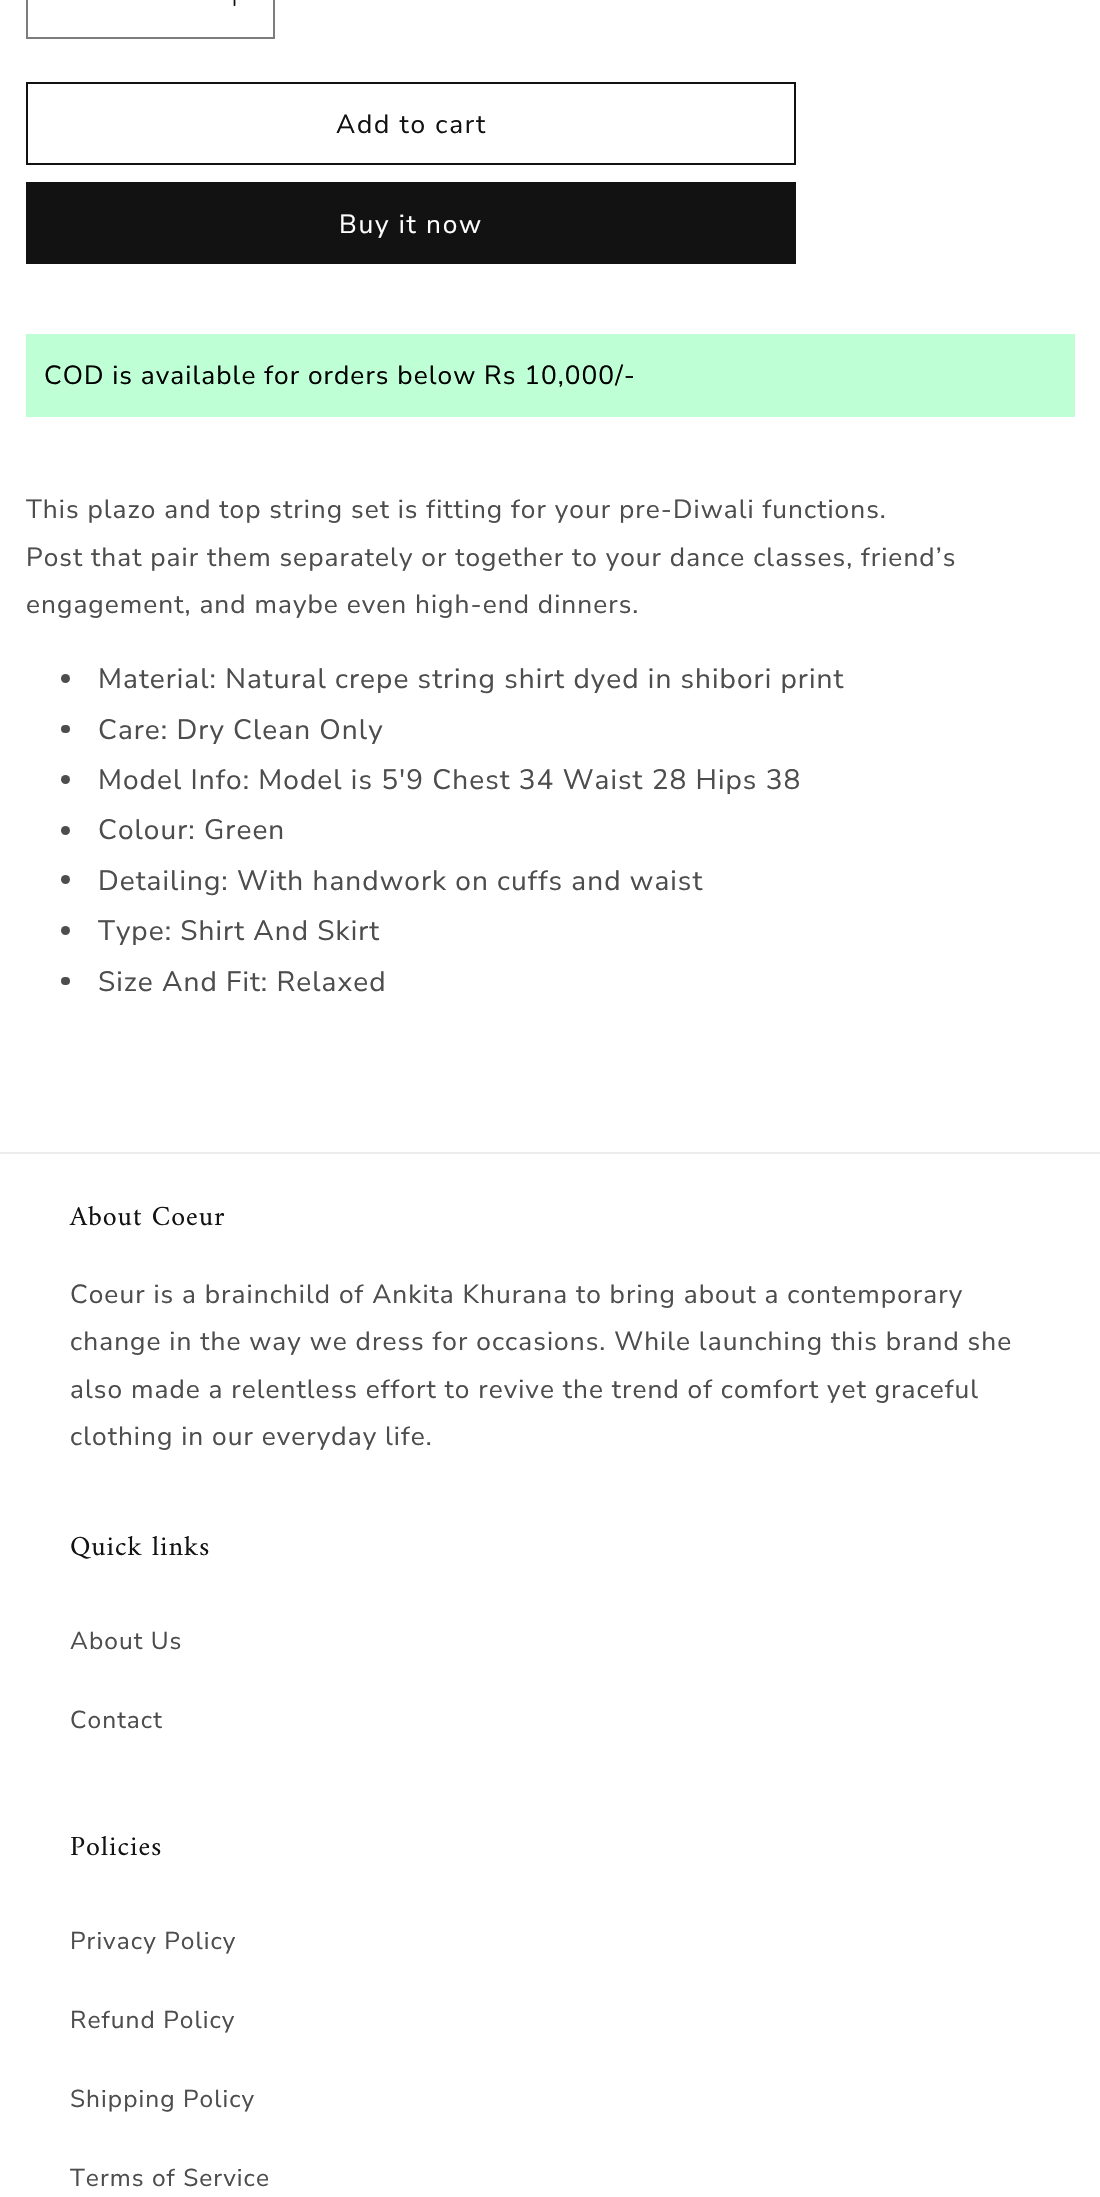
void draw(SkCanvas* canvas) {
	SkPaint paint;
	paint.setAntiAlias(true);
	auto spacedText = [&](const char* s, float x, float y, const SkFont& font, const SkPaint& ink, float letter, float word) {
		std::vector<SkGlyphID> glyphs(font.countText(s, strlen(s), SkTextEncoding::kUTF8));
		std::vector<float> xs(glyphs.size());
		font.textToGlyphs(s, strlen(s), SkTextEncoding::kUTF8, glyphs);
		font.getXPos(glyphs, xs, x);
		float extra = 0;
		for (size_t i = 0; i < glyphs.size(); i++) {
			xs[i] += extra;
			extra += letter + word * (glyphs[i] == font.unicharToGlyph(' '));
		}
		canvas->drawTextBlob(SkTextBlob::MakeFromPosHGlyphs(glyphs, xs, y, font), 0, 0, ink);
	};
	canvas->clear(0xffffffff);
	canvas->drawImageRect(SkImages::DeferredFromEncodedData(SkData::MakeFromFileName("img1.png")), SkRect::MakeXYWH(233, 0, 3, 7), SkSamplingOptions());
	paint.setStroke(true);
	paint.setStrokeWidth(2);
	paint.setColor(0xff7d7d7d);
	canvas->drawRect(SkRect::MakeXYWH(27, -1, 247, 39), paint);
	paint.setColor(0xff121212);
	canvas->drawRect(SkRect::MakeXYWH(27, 83, 768, 81), paint);
	SkFont f1(fontMgr->matchFamilyStyle("Nunito Sans", SkFontStyle::Normal()), 26.25);
	f1.setSubpixel(true);
	paint.setStroke(false);
	spacedText("Add to cart", 336, 133, f1, paint, 1.75, 0);
	canvas->drawRect(SkRect::MakeXYWH(26, 182, 770, 82), paint);
	paint.setColor(0xffffffff);
	spacedText("Buy it now", 339, 233, f1, paint, 1.75, 0);
	paint.setColor(0xffbeffd6);
	canvas->drawRect(SkRect::MakeXYWH(26, 334, 1049, 83), paint);
	paint.setColor(0xff000000);
	spacedText("COD is available for orders below Rs 10,000/-", 44, 384, f1, paint, 1.05, 0);
	paint.setColor(0xff4d4d4d);
	spacedText("This plazo and top string set is fitting for your pre-Diwali functions.", 26, 518, f1, paint, 1.05, 0);
	spacedText("Post that pair them separately or together to your dance classes, friend’s", 26, 566, f1, paint, 1.05, 0);
	spacedText("engagement, and maybe even high-end dinners.", 26, 613, f1, paint, 1.05, 0);
	canvas->drawCircle(65.5, 678.5, 4.5, paint);
	SkFont f2(fontMgr->matchFamilyStyle("Nunito Sans", SkFontStyle::Normal()), 28);
	f2.setSubpixel(true);
	spacedText("Material: Natural crepe string shirt dyed in shibori print", 98, 688, f2, paint, 1.05, 0);
	canvas->drawRoundRect(SkRect::MakeXYWH(61, 725, 9, 8), 4, 4, paint);
	spacedText("Care: Dry Clean Only", 98, 739, f2, paint, 1.05, 0);
	canvas->drawCircle(65.5, 779.5, 4.5, paint);
	spacedText("Model Info: Model is 5'9 Chest 34 Waist 28 Hips 38", 98, 789, f2, paint, 1.05, 0);
	canvas->drawCircle(65.5, 830.5, 4.5, paint);
	spacedText("Colour: Green", 98, 839, f2, paint, 1.05, 0);
	canvas->drawCircle(65.5, 879.5, 4.5, paint);
	spacedText("Detailing: With handwork on cuffs and waist", 98, 890, f2, paint, 1.05, 0);
	canvas->drawCircle(65.5, 930.5, 4.5, paint);
	spacedText("Type: Shirt And Skirt", 98, 940, f2, paint, 1.05, 0);
	canvas->drawRoundRect(SkRect::MakeXYWH(61, 977, 9, 8), 4, 4, paint);
	spacedText("Size And Fit: Relaxed", 98, 991, f2, paint, 1.05, 0);
	paint.setColor(0xffececec);
	canvas->drawRect(SkRect::MakeXYWH(0, 1152, 1100, 2), paint);
	SkFont f3(fontMgr->matchFamilyStyle("Amiri", SkFontStyle::Normal()), 28);
	f3.setSubpixel(true);
	paint.setColor(0xff121212);
	spacedText("About Coeur", 70, 1225, f3, paint, 1.05, 0);
	paint.setColor(0xff4d4d4d);
	spacedText("Coeur is a brainchild of Ankita Khurana to bring about a contemporary", 70, 1303, f1, paint, 1.05, 0);
	spacedText("change in the way we dress for occasions. While launching this brand she", 70, 1350, f1, paint, 1.05, 0);
	spacedText("also made a relentless effort to revive the trend of comfort yet graceful", 70, 1398, f1, paint, 1.05, 0);
	spacedText("clothing in our everyday life.", 70, 1445, f1, paint, 1.05, 0);
	paint.setColor(0xff121212);
	spacedText("Quick links", 70, 1555, f3, paint, 1.05, 0);
	SkFont f4(fontMgr->matchFamilyStyle("Nunito Sans", SkFontStyle::Normal()), 24.5);
	f4.setSubpixel(true);
	paint.setColor(0xff4d4d4d);
	spacedText("About Us", 70, 1649, f4, paint, 1.05, 0);
	spacedText("Contact", 70, 1728, f4, paint, 1.05, 0);
	paint.setColor(0xff121212);
	spacedText("Policies", 70, 1855, f3, paint, 1.05, 0);
	paint.setColor(0xff4d4d4d);
	spacedText("Privacy Policy", 70, 1949, f4, paint, 1.05, 0);
	spacedText("Refund Policy", 70, 2028, f4, paint, 1.05, 0);
	spacedText("Shipping Policy", 70, 2107, f4, paint, 1.05, 0);
	spacedText("Terms of Service", 70, 2186, f4, paint, 1.05, 0);
}
